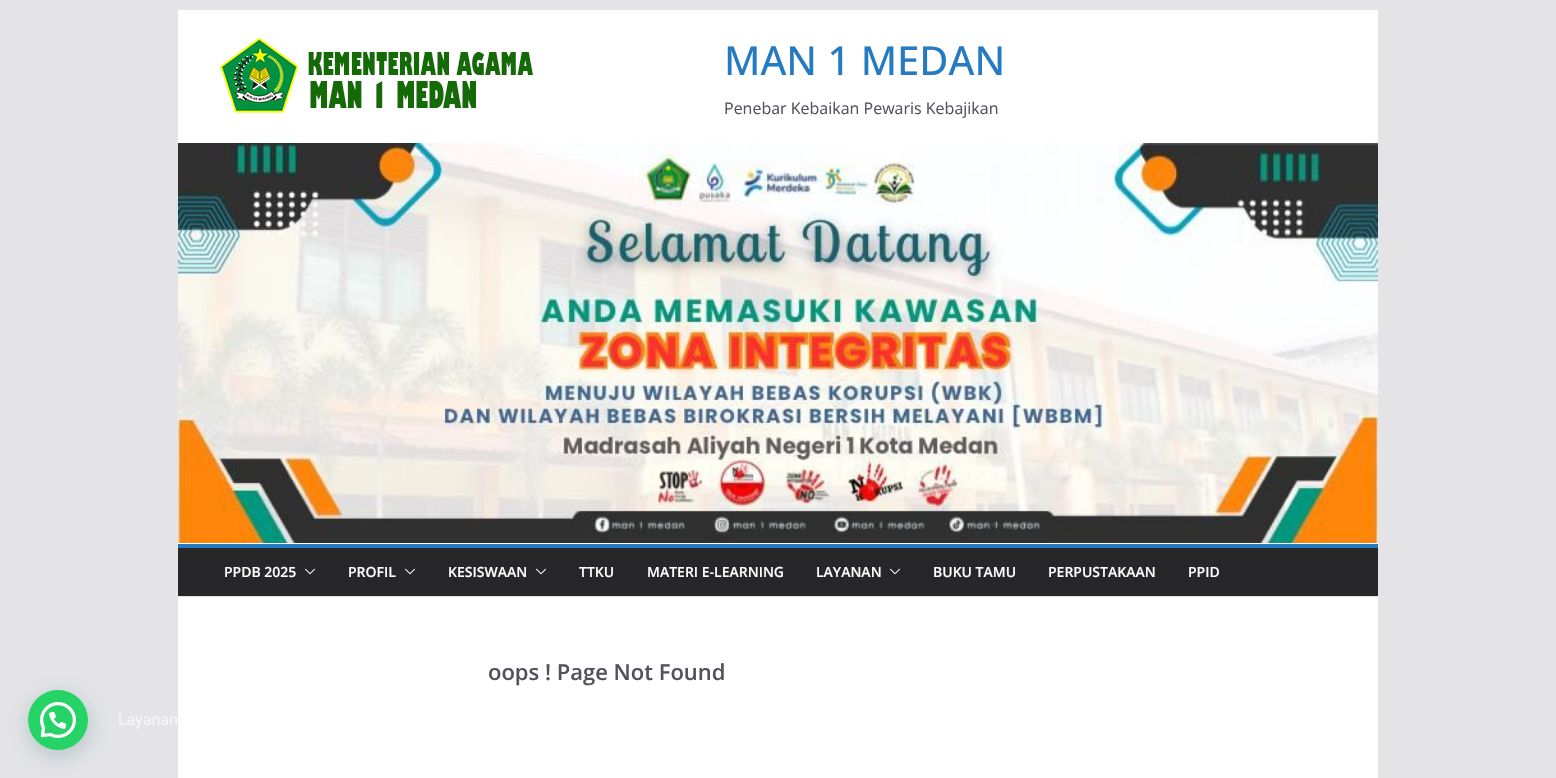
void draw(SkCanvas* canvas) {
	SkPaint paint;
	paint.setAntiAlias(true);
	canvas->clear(0xffe4e4e7);
	paint.setColor(0xffffffff);
	canvas->drawRect(SkRect::MakeXYWH(178, 10, 1200, 534), paint);
	canvas->drawImageRect(SkImages::DeferredFromEncodedData(SkData::MakeFromFileName("img1.png")), SkRect::MakeXYWH(220, 38, 313, 75), SkSamplingOptions());
	SkFont f1(fontMgr->matchFamilyStyle("Open Sans", SkFontStyle(500, SkFontStyle::kNormal_Width, SkFontStyle::kUpright_Slant)), 40);
	f1.setSubpixel(true);
	paint.setColor(0xff257bc1);
	canvas->drawString("MAN 1 MEDAN", 724, 75, f1, paint);
	SkFont f2(fontMgr->matchFamilyStyle("Open Sans", SkFontStyle::Normal()), 16);
	f2.setSubpixel(true);
	paint.setColor(0xff52525b);
	canvas->drawString("Penebar Kebaikan Pewaris Kebajikan", 724, 114, f2, paint);
	canvas->drawImageRect(SkImages::DeferredFromEncodedData(SkData::MakeFromFileName("img2.png")), SkRect::MakeXYWH(178, 143, 1200, 400), SkSamplingOptions());
	paint.setColor(0xff27272a);
	canvas->drawRect(SkRect::MakeXYWH(178, 548, 1200, 48), paint);
	paint.setColor(0xff257bc1);
	canvas->drawRect(SkRect::MakeXYWH(178, 544, 1200, 4), paint);
	SkFont f3(fontMgr->matchFamilyStyle("Open Sans", SkFontStyle(600, SkFontStyle::kNormal_Width, SkFontStyle::kUpright_Slant)), 14);
	f3.setSubpixel(true);
	paint.setColor(0xffffffff);
	canvas->drawString("PPDB 2025", 224, 577, f3, paint);
	canvas->drawImageRect(SkImages::DeferredFromEncodedData(SkData::MakeFromFileName("img3.png")), SkRect::MakeXYWH(305, 568, 10, 7), SkSamplingOptions());
	canvas->drawString("PROFIL", 348, 577, f3, paint);
	canvas->drawImageRect(SkImages::DeferredFromEncodedData(SkData::MakeFromFileName("img3.png")), SkRect::MakeXYWH(405, 568, 10, 7), SkSamplingOptions());
	canvas->drawString("KESISWAAN", 448, 577, f3, paint);
	canvas->drawImageRect(SkImages::DeferredFromEncodedData(SkData::MakeFromFileName("img3.png")), SkRect::MakeXYWH(536, 568, 10, 7), SkSamplingOptions());
	canvas->drawString("TTKU", 579, 577, f3, paint);
	canvas->drawString("MATERI E-LEARNING", 647, 577, f3, paint);
	canvas->drawString("LAYANAN", 816, 577, f3, paint);
	canvas->drawImageRect(SkImages::DeferredFromEncodedData(SkData::MakeFromFileName("img3.png")), SkRect::MakeXYWH(890, 568, 10, 7), SkSamplingOptions());
	canvas->drawString("BUKU TAMU", 933, 577, f3, paint);
	canvas->drawString("PERPUSTAKAAN", 1048, 577, f3, paint);
	canvas->drawString("PPID", 1188, 577, f3, paint);
	canvas->drawRect(SkRect::MakeXYWH(178, 597, 1200, 181), paint);
	SkFont f4(fontMgr->matchFamilyStyle("Open Sans", SkFontStyle(600, SkFontStyle::kNormal_Width, SkFontStyle::kUpright_Slant)), 22);
	f4.setSubpixel(true);
	paint.setColor(0xff52525b);
	canvas->drawString("oops ! Page Not Found", 488, 680, f4, paint);
	paint.setColor(0x3d075e54);
	paint.setMaskFilter(SkMaskFilter::MakeBlur(kNormal_SkBlurStyle, 12));
	canvas->drawRoundRect(SkRect::MakeXYWH(29, 696, 60, 60), 30, 30, paint);
	paint.setMaskFilter(nullptr);
	paint.setColor(0xff25d366);
	canvas->drawCircle(58, 720, 30, paint);
	canvas->drawImageRect(SkImages::DeferredFromEncodedData(SkData::MakeFromFileName("img4.png")), SkRect::MakeXYWH(40, 702, 36, 36), SkSamplingOptions());
	SkFont f5(fontMgr->matchFamilyStyle("Roboto", SkFontStyle::Normal()), 16);
	f5.setSubpixel(true);
	paint.setColor(0xfff7f7f8);
	canvas->drawString("Layanan", 118, 725, f5, paint);
}
